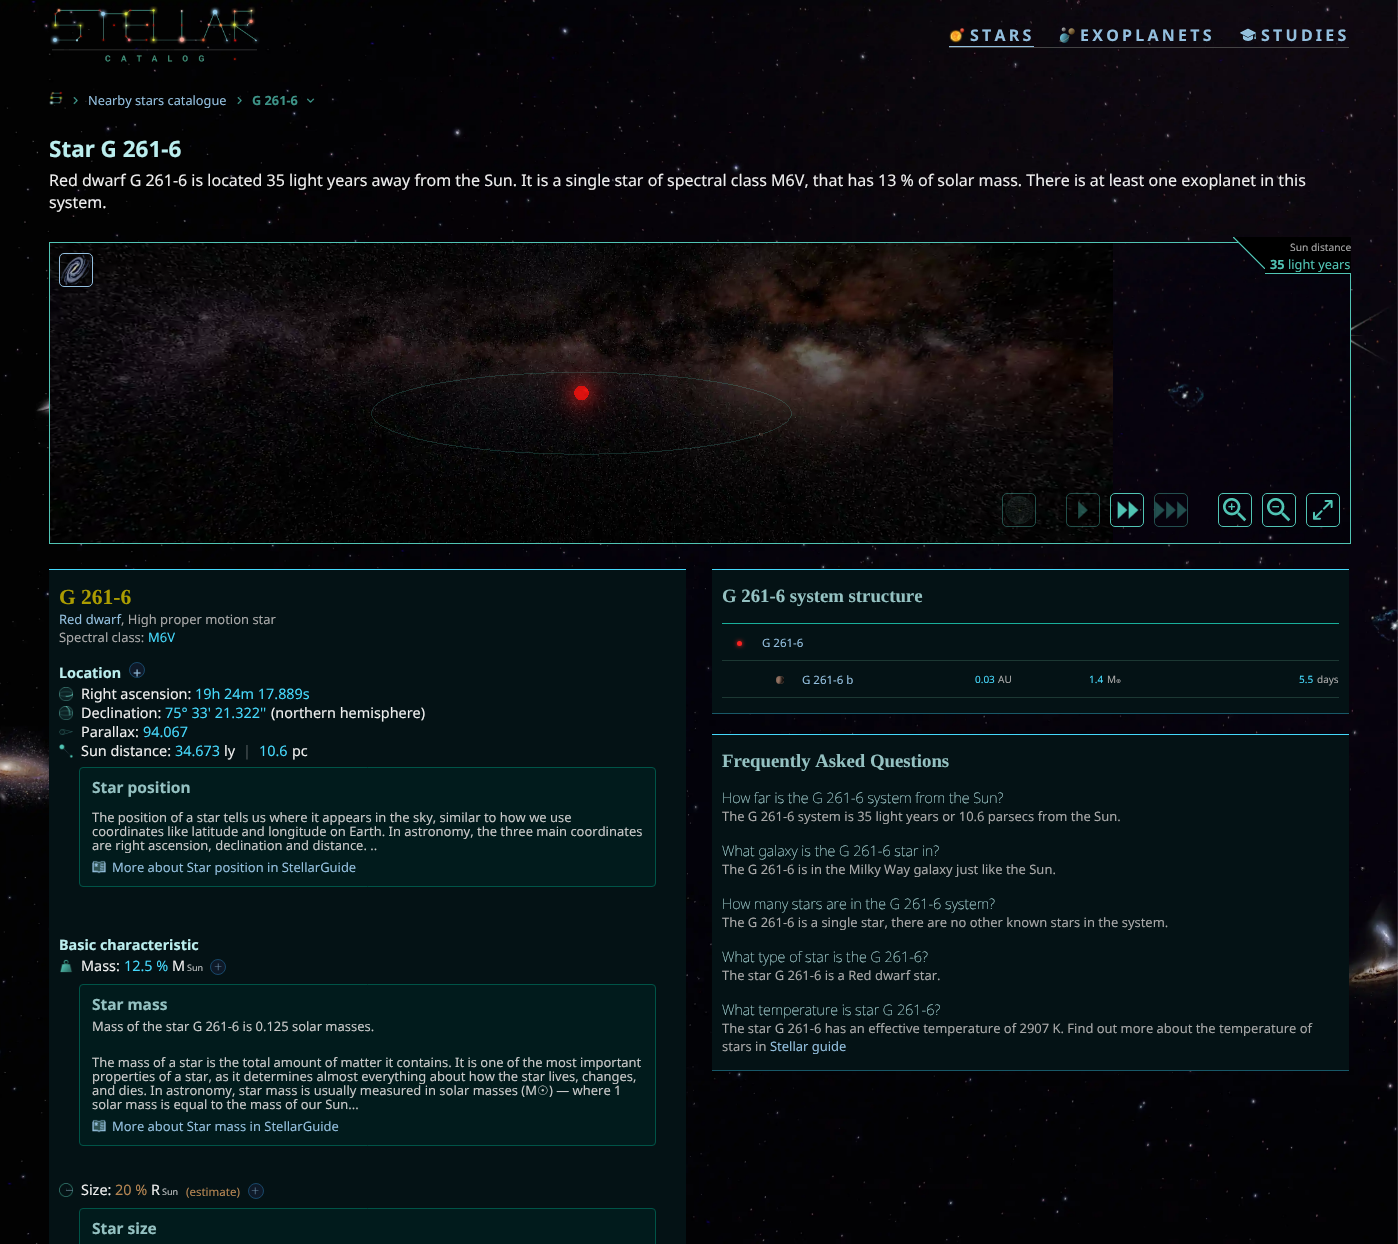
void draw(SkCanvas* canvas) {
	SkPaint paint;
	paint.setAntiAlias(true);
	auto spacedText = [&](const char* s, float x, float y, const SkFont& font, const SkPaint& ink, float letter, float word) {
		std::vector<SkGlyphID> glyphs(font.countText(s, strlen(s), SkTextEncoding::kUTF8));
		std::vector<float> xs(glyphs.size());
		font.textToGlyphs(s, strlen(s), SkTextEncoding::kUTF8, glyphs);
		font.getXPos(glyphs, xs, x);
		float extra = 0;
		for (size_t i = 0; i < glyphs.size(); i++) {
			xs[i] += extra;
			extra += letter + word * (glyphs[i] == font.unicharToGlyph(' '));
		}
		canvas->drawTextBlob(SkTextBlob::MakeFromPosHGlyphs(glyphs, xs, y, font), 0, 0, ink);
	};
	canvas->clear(0xffffffff);
	canvas->drawImageRect(SkImages::DeferredFromEncodedData(SkData::MakeFromFileName("img1.png")), SkRect::MakeXYWH(0, 0, 1398, 1244), SkSamplingOptions());
	canvas->drawImageRect(SkImages::DeferredFromEncodedData(SkData::MakeFromFileName("img2.png")), SkRect::MakeXYWH(50, 6, 210, 56), SkSamplingOptions());
	paint.setColor(0xff444444);
	canvas->drawRect(SkRect::MakeXYWH(949, 47, 400, 1), paint);
	paint.setColor(0xff93bfde);
	canvas->drawRect(SkRect::MakeXYWH(949, 46, 85, 1), paint);
	canvas->drawImageRect(SkImages::DeferredFromEncodedData(SkData::MakeFromFileName("img3.png")), SkRect::MakeXYWH(949, 28, 16, 15), SkSamplingOptions());
	SkFont f1(fontMgr->matchFamilyStyle("Noto Sans", SkFontStyle::Bold()), 16);
	f1.setSubpixel(true);
	spacedText("STARS", 970, 41, f1, paint, 3.25, 0);
	canvas->drawImageRect(SkImages::DeferredFromEncodedData(SkData::MakeFromFileName("img4.png")), SkRect::MakeXYWH(1059, 27, 16, 16), SkSamplingOptions());
	spacedText("EXOPLANETS", 1080, 41, f1, paint, 3.25, 0);
	canvas->drawImageRect(SkImages::DeferredFromEncodedData(SkData::MakeFromFileName("img5.png")), SkRect::MakeXYWH(1240, 28, 16, 13), SkSamplingOptions());
	spacedText("STUDIES", 1261, 41, f1, paint, 3.25, 0);
	canvas->drawImageRect(SkImages::DeferredFromEncodedData(SkData::MakeFromFileName("img6.png")), SkRect::MakeXYWH(49, 91, 14, 14), SkSamplingOptions());
	canvas->drawImageRect(SkImages::DeferredFromEncodedData(SkData::MakeFromFileName("img7.png")), SkRect::MakeXYWH(73, 97, 5, 8), SkSamplingOptions());
	SkFont f2(fontMgr->matchFamilyStyle("Noto Sans", SkFontStyle::Normal()), 12.75);
	f2.setSubpixel(true);
	canvas->drawString("Nearby stars catalogue", 88, 105, f2, paint);
	canvas->drawImageRect(SkImages::DeferredFromEncodedData(SkData::MakeFromFileName("img8.png")), SkRect::MakeXYWH(237, 97, 5, 8), SkSamplingOptions());
	SkFont f3(fontMgr->matchFamilyStyle("Noto Sans", SkFontStyle::Bold()), 12.75);
	f3.setSubpixel(true);
	paint.setColor(0xff3d9387);
	canvas->drawString("G 261-6", 252, 105, f3, paint);
	canvas->drawImageRect(SkImages::DeferredFromEncodedData(SkData::MakeFromFileName("img9.png")), SkRect::MakeXYWH(307, 98, 8, 5), SkSamplingOptions());
	SkFont f4(fontMgr->matchFamilyStyle("Noto Sans", SkFontStyle::Bold()), 22.5);
	f4.setSubpixel(true);
	paint.setColor(0xffbbeeee);
	canvas->drawString("Star G 261-6", 49, 157, f4, paint);
	SkFont f5(fontMgr->matchFamilyStyle("Noto Sans", SkFontStyle::Normal()), 16);
	f5.setSubpixel(true);
	paint.setColor(0xffeeeeee);
	canvas->drawString("Red dwarf G 261-6 is located 35 light years away from the Sun. It is a single star of spectral class M6V, that has 13 % of solar mass. There is at least one exoplanet in this", 49, 186, f5, paint);
	canvas->drawString("system.", 49, 208, f5, paint);
	paint.setStroke(true);
	paint.setStrokeWidth(1);
	paint.setColor(0xff51c4b4);
	canvas->drawRect(SkRect::MakeXYWH(49.5, 242.5, 1301, 301), paint);
	canvas->drawImageRect(SkImages::DeferredFromEncodedData(SkData::MakeFromFileName("img10.png")), SkRect::MakeXYWH(50, 243, 1300, 300), SkSamplingOptions());
	paint.setColor(0xff93bfde);
	canvas->drawRoundRect(SkRect::MakeXYWH(59.5, 253.5, 33, 33), 4.5, 4.5, paint);
	canvas->drawImageRect(SkImages::DeferredFromEncodedData(SkData::MakeFromFileName("img11.png")), SkRect::MakeXYWH(61, 255, 31, 31), SkSamplingOptions());
	canvas->drawImageRect(SkImages::DeferredFromEncodedData(SkData::MakeFromFileName("img12.png")), SkRect::MakeXYWH(1233, 237, 32, 32), SkSamplingOptions());
	paint.setStroke(false);
	paint.setColor(0xff000000);
	canvas->drawRect(SkRect::MakeXYWH(1265, 237, 86, 36), paint);
	paint.setColor(0xff51c4b4);
	canvas->drawRect(SkRect::MakeXYWH(1265, 273, 86, 1), paint);
	SkFont f6(fontMgr->matchFamilyStyle("Noto Sans", SkFontStyle::Normal()), 10.25);
	f6.setSubpixel(true);
	paint.setColor(0xffa8a8a8);
	canvas->drawString("Sun distance", 1290, 251, f6, paint);
	paint.setColor(0xff51c4b4);
	canvas->drawString("35", 1270, 269, f3, paint);
	canvas->drawString("light years", 1288, 269, f2, paint);
	paint.setColor(0xff041215);
	canvas->drawRect(SkRect::MakeXYWH(49, 570, 637, 674), paint);
	paint.setColor(0xff45d8fb);
	canvas->drawRect(SkRect::MakeXYWH(49, 569, 637, 1), paint);
	SkFont f7(fontMgr->matchFamilyStyle("Liberation Serif", SkFontStyle::Bold()), 21.5);
	f7.setSubpixel(true);
	paint.setColor(0xffab9c01);
	canvas->drawString("G 261-6", 59, 604, f7, paint);
	SkFont f8(fontMgr->matchFamilyStyle("Noto Sans", SkFontStyle::Normal()), 12.95);
	f8.setSubpixel(true);
	paint.setColor(0xff93bfde);
	canvas->drawString("Red dwarf", 59, 624, f8, paint);
	paint.setColor(0xffa8a8a8);
	canvas->drawString(", High proper motion star", 121, 624, f8, paint);
	canvas->drawString("Spectral class:", 59, 642, f8, paint);
	paint.setColor(0xff45d8fb);
	canvas->drawString("M6V", 148, 642, f8, paint);
	SkFont f9(fontMgr->matchFamilyStyle("Noto Sans", SkFontStyle::Bold()), 14.4);
	f9.setSubpixel(true);
	paint.setColor(0xffbbeeee);
	canvas->drawString("Location", 59, 678, f9, paint);
	paint.setColor(0xff0e1928);
	canvas->drawCircle(137, 670, 7.5, paint);
	paint.setStroke(true);
	paint.setColor(0xff164668);
	canvas->drawCircle(137, 670, 7.5, paint);
	SkFont f10(fontMgr->matchFamilyStyle("Noto Sans", SkFontStyle::Normal()), 14.4);
	f10.setSubpixel(true);
	paint.setStroke(false);
	paint.setColor(0xff93bfde);
	canvas->drawString("+", 133, 678, f10, paint);
	canvas->drawImageRect(SkImages::DeferredFromEncodedData(SkData::MakeFromFileName("img13.png")), SkRect::MakeXYWH(59, 687, 14, 14), SkSamplingOptions());
	paint.setColor(0xffeeeeee);
	canvas->drawString("Right ascension:", 81, 699, f10, paint);
	paint.setColor(0xff45d8fb);
	canvas->drawString("19h 24m 17.889s", 195, 699, f10, paint);
	canvas->drawImageRect(SkImages::DeferredFromEncodedData(SkData::MakeFromFileName("img14.png")), SkRect::MakeXYWH(59, 706, 14, 14), SkSamplingOptions());
	paint.setColor(0xffeeeeee);
	canvas->drawString("Declination:", 81, 718, f10, paint);
	paint.setColor(0xff45d8fb);
	canvas->drawString("75° 33' 21.322''", 165, 718, f10, paint);
	paint.setColor(0xffeeeeee);
	canvas->drawString("(northern hemisphere)", 271, 718, f10, paint);
	canvas->drawImageRect(SkImages::DeferredFromEncodedData(SkData::MakeFromFileName("img15.png")), SkRect::MakeXYWH(59, 729, 14, 6), SkSamplingOptions());
	canvas->drawString("Parallax:", 81, 737, f10, paint);
	paint.setColor(0xff45d8fb);
	canvas->drawString("94.067", 143, 737, f10, paint);
	canvas->drawImageRect(SkImages::DeferredFromEncodedData(SkData::MakeFromFileName("img16.png")), SkRect::MakeXYWH(59, 744, 14, 14), SkSamplingOptions());
	paint.setColor(0xffeeeeee);
	canvas->drawString("Sun distance:", 81, 756, f10, paint);
	paint.setColor(0xff45d8fb);
	canvas->drawString("34.673", 175, 756, f10, paint);
	paint.setColor(0xffeeeeee);
	canvas->drawString("ly", 224, 756, f10, paint);
	paint.setColor(0xff4a5456);
	canvas->drawString("|", 243, 756, f10, paint);
	paint.setColor(0xff45d8fb);
	canvas->drawString("10.6", 259, 756, f10, paint);
	paint.setColor(0xffeeeeee);
	canvas->drawString("pc", 292, 756, f10, paint);
	paint.setColor(0xff011b1c);
	canvas->drawRoundRect(SkRect::MakeXYWH(79.5, 767.5, 576, 119), 3.5, 3.5, paint);
	paint.setStroke(true);
	paint.setColor(0xff005447);
	canvas->drawRoundRect(SkRect::MakeXYWH(79.5, 767.5, 576, 119), 3.5, 3.5, paint);
	SkFont f11(fontMgr->matchFamilyStyle("Noto Sans", SkFontStyle::Bold()), 15.5);
	f11.setSubpixel(true);
	paint.setStroke(false);
	paint.setColor(0xff94c1c1);
	canvas->drawString("Star position", 92, 793, f11, paint);
	paint.setColor(0xffc9c9c9);
	canvas->drawString("The position of a star tells us where it appears in the sky, similar to how we use", 92, 822, f8, paint);
	canvas->drawString("coordinates like latitude and longitude on Earth. In astronomy, the three main coordinates", 92, 836, f8, paint);
	canvas->drawString("are right ascension, declination and distance. ..", 92, 850, f8, paint);
	canvas->drawImageRect(SkImages::DeferredFromEncodedData(SkData::MakeFromFileName("img17.png")), SkRect::MakeXYWH(92, 860, 14, 14), SkSamplingOptions());
	paint.setColor(0xff93bfde);
	canvas->drawString("More about Star position in StellarGuide", 112, 872, f8, paint);
	paint.setColor(0xffbbeeee);
	canvas->drawString("Basic characteristic", 59, 950, f9, paint);
	canvas->drawImageRect(SkImages::DeferredFromEncodedData(SkData::MakeFromFileName("img18.png")), SkRect::MakeXYWH(60, 959, 13, 14), SkSamplingOptions());
	paint.setColor(0xffeeeeee);
	canvas->drawString("Mass:", 81, 971, f10, paint);
	paint.setColor(0xff45d8fb);
	canvas->drawString("12.5 %", 124, 971, f10, paint);
	paint.setColor(0xffeeeeee);
	canvas->drawString("M", 172, 971, f10, paint);
	SkFont f12(fontMgr->matchFamilyStyle("Noto Sans", SkFontStyle::Normal()), 9);
	f12.setSubpixel(true);
	paint.setColor(0xffbfc2c3);
	canvas->drawString("Sun", 187, 971, f12, paint);
	paint.setColor(0xff0e1928);
	canvas->drawCircle(218, 967, 7.5, paint);
	paint.setStroke(true);
	paint.setColor(0xff164668);
	canvas->drawCircle(218, 967, 7.5, paint);
	SkFont f13(fontMgr->matchFamilyStyle("Noto Sans", SkFontStyle(100, SkFontStyle::kNormal_Width, SkFontStyle::kUpright_Slant)), 14.4);
	f13.setSubpixel(true);
	paint.setStroke(false);
	paint.setColor(0xff93bfde);
	canvas->drawString("+", 214, 972, f13, paint);
	paint.setColor(0xff011b1c);
	canvas->drawRoundRect(SkRect::MakeXYWH(79.5, 984.5, 576, 161), 3.5, 3.5, paint);
	paint.setStroke(true);
	paint.setColor(0xff005447);
	canvas->drawRoundRect(SkRect::MakeXYWH(79.5, 984.5, 576, 161), 3.5, 3.5, paint);
	paint.setStroke(false);
	paint.setColor(0xff94c1c1);
	canvas->drawString("Star mass", 92, 1010, f11, paint);
	paint.setColor(0xffc9c9c9);
	canvas->drawString("Mass of the star G 261-6 is 0.125 solar masses.", 92, 1031, f8, paint);
	canvas->drawString("The mass of a star is the total amount of matter it contains. It is one of the most important", 92, 1067, f8, paint);
	canvas->drawString("properties of a star, as it determines almost everything about how the star lives, changes,", 92, 1081, f8, paint);
	canvas->drawString("and dies. In astronomy, star mass is usually measured in solar masses (M", 92, 1095, f8, paint);
	SkFont f14(fontMgr->matchFamilyStyle("DejaVu Sans", SkFontStyle::Normal()), 12.95);
	f14.setSubpixel(true);
	canvas->drawString("☉", 537, 1095, f14, paint);
	canvas->drawString(") — where 1", 549, 1095, f8, paint);
	canvas->drawString("solar mass is equal to the mass of our Sun...", 92, 1109, f8, paint);
	canvas->drawImageRect(SkImages::DeferredFromEncodedData(SkData::MakeFromFileName("img17.png")), SkRect::MakeXYWH(92, 1119, 14, 14), SkSamplingOptions());
	paint.setColor(0xff93bfde);
	canvas->drawString("More about Star mass in StellarGuide", 112, 1131, f8, paint);
	canvas->drawImageRect(SkImages::DeferredFromEncodedData(SkData::MakeFromFileName("img19.png")), SkRect::MakeXYWH(59, 1183, 14, 14), SkSamplingOptions());
	paint.setColor(0xffeeeeee);
	canvas->drawString("Size:", 81, 1195, f10, paint);
	paint.setColor(0xffb58552);
	canvas->drawString("20 %", 115, 1195, f10, paint);
	paint.setColor(0xffeeeeee);
	canvas->drawString("R", 151, 1195, f10, paint);
	paint.setColor(0xffbfc2c3);
	canvas->drawString("Sun", 162, 1195, f12, paint);
	SkFont f15(fontMgr->matchFamilyStyle("Noto Sans", SkFontStyle::Normal()), 11.5);
	f15.setSubpixel(true);
	paint.setColor(0xffb58552);
	canvas->drawString("(estimate)", 186, 1196, f15, paint);
	paint.setColor(0xff0e1928);
	canvas->drawCircle(256, 1191, 7.5, paint);
	paint.setStroke(true);
	paint.setColor(0xff164668);
	canvas->drawCircle(256, 1191, 7.5, paint);
	paint.setStroke(false);
	paint.setColor(0xff93bfde);
	canvas->drawString("+", 251, 1196, f13, paint);
	paint.setColor(0xff011b1c);
	canvas->drawRoundRect(SkRect::MakeXYWH(79.5, 1208.5, 576, 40), 3.5, 3.5, paint);
	paint.setStroke(true);
	paint.setColor(0xff005447);
	canvas->drawRoundRect(SkRect::MakeXYWH(79.5, 1208.5, 576, 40), 3.5, 3.5, paint);
	paint.setStroke(false);
	paint.setColor(0xff94c1c1);
	canvas->drawString("Star size", 92, 1234, f11, paint);
	paint.setColor(0xff041215);
	canvas->drawRect(SkRect::MakeXYWH(712, 570, 637, 143), paint);
	paint.setColor(0xff45d8fb);
	canvas->drawRect(SkRect::MakeXYWH(712, 569, 637, 1), paint);
	paint.setColor(0xff185868);
	canvas->drawRect(SkRect::MakeXYWH(712, 713, 637, 1), paint);
	SkFont f16(fontMgr->matchFamilyStyle("Liberation Serif", SkFontStyle::Bold()), 18.75);
	f16.setSubpixel(true);
	paint.setColor(0xff94c1c1);
	canvas->drawString("G 261-6 system structure", 722, 602, f16, paint);
	paint.setColor(0xff19af9b);
	canvas->drawRect(SkRect::MakeXYWH(722, 623, 617, 1), paint);
	paint.setColor(0xff1c3833);
	canvas->drawRect(SkRect::MakeXYWH(722, 660, 617, 1), paint);
	paint.setColor(0xfffb2220);
	canvas->drawCircle(739.5, 643.5, 2.5, paint);
	paint.setMaskFilter(SkMaskFilter::MakeBlur(kNormal_SkBlurStyle, 2));
	canvas->drawRoundRect(SkRect::MakeXYWH(737, 641, 5, 5), 2.5, 2.5, paint);
	paint.setMaskFilter(nullptr);
	paint.setColor(0xff93bfde);
	canvas->drawString("G 261-6", 762, 647, f15, paint);
	paint.setColor(0xff997766);
	canvas->drawCircle(780, 680, 4, paint);
	canvas->drawImageRect(SkImages::DeferredFromEncodedData(SkData::MakeFromFileName("img20.png")), SkRect::MakeXYWH(776, 676, 8, 8), SkSamplingOptions());
	paint.setColor(0xff93bfde);
	canvas->drawString("G 261-6 b", 802, 684, f15, paint);
	SkFont f17(fontMgr->matchFamilyStyle("Noto Sans", SkFontStyle::Normal()), 10);
	f17.setSubpixel(true);
	paint.setColor(0xff45d8fb);
	canvas->drawString("0.03", 975, 683, f17, paint);
	paint.setColor(0xffa8a8a8);
	canvas->drawString("AU", 998, 683, f17, paint);
	paint.setColor(0xff45d8fb);
	canvas->drawString("1.4", 1089, 683, f17, paint);
	paint.setColor(0xffa8a8a8);
	canvas->drawString("M", 1107, 683, f17, paint);
	SkFont f18(fontMgr->matchFamilyStyle("DejaVu Sans", SkFontStyle::Normal()), 6);
	f18.setSubpixel(true);
	canvas->drawString("⊕", 1116, 683, f18, paint);
	paint.setColor(0xff45d8fb);
	canvas->drawString("5.5", 1299, 683, f17, paint);
	paint.setColor(0xffa8a8a8);
	canvas->drawString("days", 1317, 683, f17, paint);
	paint.setColor(0xff1c3833);
	canvas->drawRect(SkRect::MakeXYWH(722, 697, 617, 1), paint);
	paint.setColor(0xff041215);
	canvas->drawRect(SkRect::MakeXYWH(712, 735, 637, 335), paint);
	paint.setColor(0xff45d8fb);
	canvas->drawRect(SkRect::MakeXYWH(712, 734, 637, 1), paint);
	paint.setColor(0xff185868);
	canvas->drawRect(SkRect::MakeXYWH(712, 1070, 637, 1), paint);
	paint.setColor(0xff94c1c1);
	canvas->drawString("Frequently Asked Questions", 722, 767, f16, paint);
	paint.setColor(0xffbbeeee);
	canvas->drawString("How far is the G 261-6 system from the Sun?", 722, 803, f13, paint);
	paint.setColor(0xffa8a8a8);
	canvas->drawString("The G 261-6 system is 35 light years or 10.6 parsecs from the Sun.", 722, 821, f8, paint);
	paint.setColor(0xffbbeeee);
	canvas->drawString("What galaxy is the G 261-6 star in?", 722, 856, f13, paint);
	paint.setColor(0xffa8a8a8);
	canvas->drawString("The G 261-6 is in the Milky Way galaxy just like the Sun.", 722, 874, f8, paint);
	paint.setColor(0xffbbeeee);
	canvas->drawString("How many stars are in the G 261-6 system?", 722, 909, f13, paint);
	paint.setColor(0xffa8a8a8);
	canvas->drawString("The G 261-6 is a single star, there are no other known stars in the system.", 722, 927, f8, paint);
	paint.setColor(0xffbbeeee);
	canvas->drawString("What type of star is the G 261-6?", 722, 962, f13, paint);
	paint.setColor(0xffa8a8a8);
	canvas->drawString("The star G 261-6 is a Red dwarf star.", 722, 980, f8, paint);
	paint.setColor(0xffbbeeee);
	canvas->drawString("What temperature is star G 261-6?", 722, 1015, f13, paint);
	paint.setColor(0xffa8a8a8);
	canvas->drawString("The star G 261-6 has an effective temperature of 2907 K. Find out more about the temperature of", 722, 1033, f8, paint);
	canvas->drawString("stars in", 722, 1051, f8, paint);
	paint.setColor(0xff93bfde);
	canvas->drawString("Stellar guide", 770, 1051, f8, paint);
}
